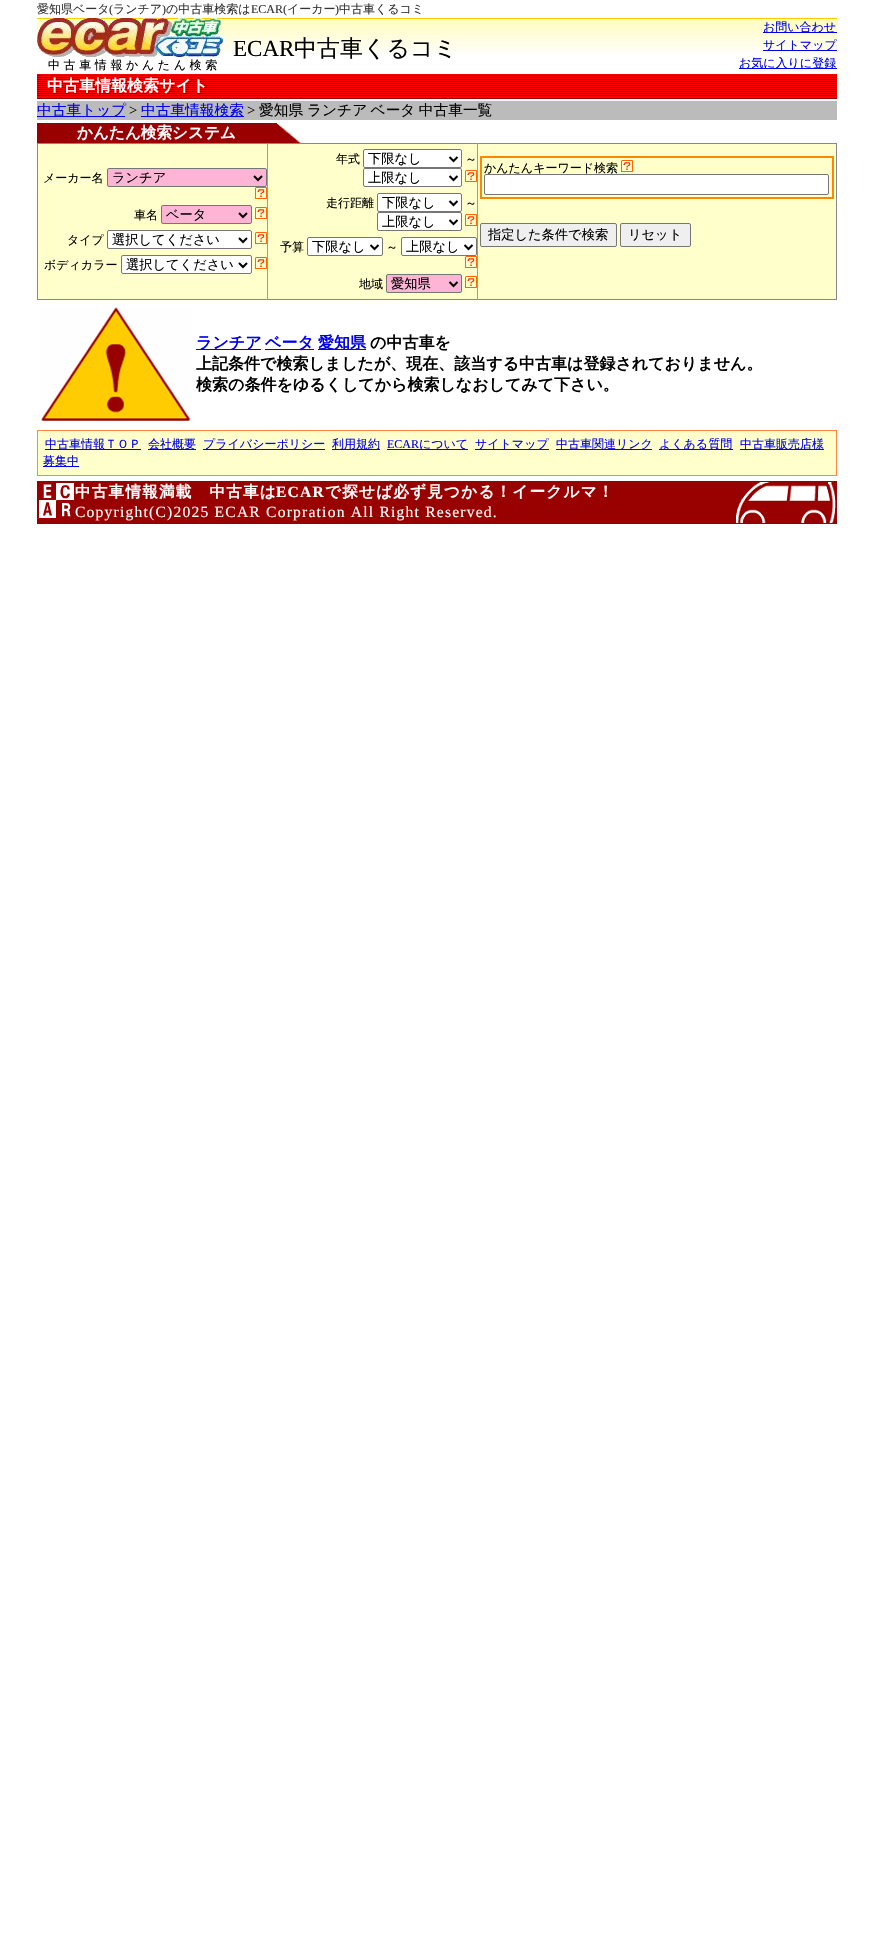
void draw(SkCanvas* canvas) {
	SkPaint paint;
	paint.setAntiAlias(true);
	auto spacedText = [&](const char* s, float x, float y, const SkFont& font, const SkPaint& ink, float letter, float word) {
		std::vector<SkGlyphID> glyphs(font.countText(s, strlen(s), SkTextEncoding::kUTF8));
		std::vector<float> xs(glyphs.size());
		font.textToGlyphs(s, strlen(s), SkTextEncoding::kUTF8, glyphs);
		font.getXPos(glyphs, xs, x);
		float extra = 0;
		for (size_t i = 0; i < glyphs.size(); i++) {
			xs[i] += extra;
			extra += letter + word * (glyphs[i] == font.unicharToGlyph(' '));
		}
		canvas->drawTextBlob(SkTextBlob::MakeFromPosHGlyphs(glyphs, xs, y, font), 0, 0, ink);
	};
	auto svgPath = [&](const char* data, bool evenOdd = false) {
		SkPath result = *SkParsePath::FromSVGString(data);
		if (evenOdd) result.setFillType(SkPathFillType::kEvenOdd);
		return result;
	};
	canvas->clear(0xffffffff);
	SkFont f1(fontMgr->matchFamilyStyle("WenQuanYi Zen Hei", SkFontStyle(500, SkFontStyle::kNormal_Width, SkFontStyle::kUpright_Slant)), 12);
	f1.setSubpixel(true);
	paint.setColor(0xff333333);
	canvas->drawString("愛知県ベータ", 37, 13, f1, paint);
	SkFont f2(fontMgr->matchFamilyStyle("Liberation Serif", SkFontStyle::Normal()), 12);
	f2.setSubpixel(true);
	canvas->drawString("(", 109, 13, f2, paint);
	canvas->drawString("ランチア", 113, 13, f1, paint);
	canvas->drawString(")", 162, 13, f2, paint);
	canvas->drawString("の中古車検索は", 166, 13, f1, paint);
	canvas->drawString("ECAR(", 251, 13, f2, paint);
	canvas->drawString("イーカー", 287, 13, f1, paint);
	canvas->drawString(")", 335, 13, f2, paint);
	canvas->drawString("中古車くるコミ", 339, 13, f1, paint);
	canvas->drawImageRect(SkImages::DeferredFromEncodedData(SkData::MakeFromFileName("img1.png")), SkRect::MakeXYWH(37, 18, 800, 36), SkSamplingOptions());
	SkFont f3(fontMgr->matchFamilyStyle("Liberation Serif", SkFontStyle::Normal()), 23);
	f3.setSubpixel(true);
	paint.setColor(0xff000000);
	canvas->drawString("ECAR", 233, 56, f3, paint);
	SkFont f4(fontMgr->matchFamilyStyle("WenQuanYi Zen Hei", SkFontStyle(500, SkFontStyle::kNormal_Width, SkFontStyle::kUpright_Slant)), 23);
	f4.setSubpixel(true);
	canvas->drawString("中古車くるコミ", 294, 56, f4, paint);
	paint.setColor(0xff0000ee);
	canvas->drawRect(SkRect::MakeXYWH(763, 32, 74, 1), paint);
	canvas->drawString("お問い合わせ", 763, 31, f1, paint);
	canvas->drawRect(SkRect::MakeXYWH(763, 50, 74, 1), paint);
	canvas->drawString("サイトマップ", 763, 49, f1, paint);
	canvas->drawRect(SkRect::MakeXYWH(739, 68, 98, 1), paint);
	canvas->drawString("お気に入りに登録", 739, 67, f1, paint);
	canvas->drawImageRect(SkImages::DeferredFromEncodedData(SkData::MakeFromFileName("img2.png")), SkRect::MakeXYWH(37, 18, 186, 39), SkSamplingOptions());
	paint.setColor(0xff000000);
	spacedText("中古車情報かんたん検索", 48, 69, f1, paint, 3.6, 0);
	canvas->drawImageRect(SkImages::DeferredFromEncodedData(SkData::MakeFromFileName("img3.png")), SkRect::MakeXYWH(37, 74, 800, 25), SkSamplingOptions());
	SkFont f5(fontMgr->matchFamilyStyle("WenQuanYi Zen Hei", SkFontStyle::Bold()), 16);
	f5.setSubpixel(true);
	paint.setColor(0xffffffff);
	canvas->drawString("中古車情報検索サイト", 47, 91, f5, paint);
	paint.setColor(0xffbbbbbb);
	canvas->drawRect(SkRect::MakeXYWH(37, 101, 800, 19), paint);
	paint.setColor(0xff0000ee);
	canvas->drawRect(SkRect::MakeXYWH(37, 116, 88, 1), paint);
	SkFont f6(fontMgr->matchFamilyStyle("WenQuanYi Zen Hei", SkFontStyle(500, SkFontStyle::kNormal_Width, SkFontStyle::kUpright_Slant)), 14.7);
	f6.setSubpixel(true);
	canvas->drawString("中古車トップ", 37, 115, f6, paint);
	SkFont f7(fontMgr->matchFamilyStyle("Liberation Serif", SkFontStyle::Normal()), 14.7);
	f7.setSubpixel(true);
	paint.setColor(0xff000000);
	canvas->drawString(">", 129, 115, f7, paint);
	paint.setColor(0xff0000ee);
	canvas->drawRect(SkRect::MakeXYWH(141, 116, 103, 1), paint);
	canvas->drawString("中古車情報検索", 141, 115, f6, paint);
	paint.setColor(0xff000000);
	canvas->drawString(">", 247, 115, f7, paint);
	canvas->drawString("愛知県", 259, 115, f6, paint);
	spacedText("ランチア ベータ 中古車一覧", 307, 115, f6, paint, 0, -1);
	paint.setColor(0xff990000);
	canvas->drawRect(SkRect::MakeXYWH(37, 123, 240, 20), paint);
	SkFont f8(fontMgr->matchFamilyStyle("WenQuanYi Zen Hei", SkFontStyle::Bold()), 15.6);
	f8.setSubpixel(true);
	paint.setColor(0xffffffff);
	canvas->drawString("かんたん検索システム", 77, 138, f8, paint);
	canvas->drawImageRect(SkImages::DeferredFromEncodedData(SkData::MakeFromFileName("img4.png")), SkRect::MakeXYWH(277, 124, 24, 19), SkSamplingOptions());
	paint.setColor(0xffffffcc);
	canvas->drawRect(SkRect::MakeXYWH(38, 144, 798, 155), paint);
	paint.setColor(0xff888888);
	canvas->drawRect(SkRect::MakeXYWH(37, 143, 800, 1), paint);
	canvas->drawRect(SkRect::MakeXYWH(836, 143, 1, 157), paint);
	canvas->drawRect(SkRect::MakeXYWH(37, 299, 800, 1), paint);
	canvas->drawRect(SkRect::MakeXYWH(37, 143, 1, 157), paint);
	paint.setColor(0xff000000);
	canvas->drawString("メーカー名", 43, 182, f1, paint);
	paint.setColor(0xfffeb4d5);
	canvas->drawRoundRect(SkRect::MakeXYWH(107.5, 168.5, 159, 18), 1.5, 1.5, paint);
	paint.setStroke(true);
	paint.setStrokeWidth(1);
	paint.setColor(0xff767676);
	canvas->drawRoundRect(SkRect::MakeXYWH(107.5, 168.5, 159, 18), 1.5, 1.5, paint);
	paint.setStrokeWidth(2);
	paint.setColor(0xff000000);
	canvas->drawPath(svgPath("M254 176L258 180L262 176"), paint);
	SkFont f9(fontMgr->matchFamilyStyle("WenQuanYi Zen Hei", SkFontStyle(500, SkFontStyle::kNormal_Width, SkFontStyle::kUpright_Slant)), 13.25);
	f9.setSubpixel(true);
	paint.setStroke(false);
	canvas->drawString("ランチア", 112, 182, f9, paint);
	canvas->drawImageRect(SkImages::DeferredFromEncodedData(SkData::MakeFromFileName("img5.png")), SkRect::MakeXYWH(255, 187, 12, 12), SkSamplingOptions());
	canvas->drawString("車名", 134, 219, f1, paint);
	paint.setColor(0xfffeb4d5);
	canvas->drawRoundRect(SkRect::MakeXYWH(161.5, 205.5, 90, 18), 1.5, 1.5, paint);
	paint.setStroke(true);
	paint.setStrokeWidth(1);
	paint.setColor(0xff767676);
	canvas->drawRoundRect(SkRect::MakeXYWH(161.5, 205.5, 90, 18), 1.5, 1.5, paint);
	paint.setStrokeWidth(2);
	paint.setColor(0xff000000);
	canvas->drawPath(svgPath("M239 213L243 217L247 213"), paint);
	paint.setStroke(false);
	canvas->drawString("ベータ", 166, 219, f9, paint);
	canvas->drawImageRect(SkImages::DeferredFromEncodedData(SkData::MakeFromFileName("img5.png")), SkRect::MakeXYWH(255, 207, 12, 12), SkSamplingOptions());
	canvas->drawString("タイプ", 67, 244, f1, paint);
	paint.setColor(0xffffffff);
	canvas->drawRoundRect(SkRect::MakeXYWH(107.5, 230.5, 144, 18), 1.5, 1.5, paint);
	paint.setStroke(true);
	paint.setStrokeWidth(1);
	paint.setColor(0xff767676);
	canvas->drawRoundRect(SkRect::MakeXYWH(107.5, 230.5, 144, 18), 1.5, 1.5, paint);
	paint.setStrokeWidth(2);
	paint.setColor(0xff000000);
	canvas->drawPath(svgPath("M239 238L243 242L247 238"), paint);
	paint.setStroke(false);
	canvas->drawString("選択してください", 112, 244, f9, paint);
	canvas->drawImageRect(SkImages::DeferredFromEncodedData(SkData::MakeFromFileName("img5.png")), SkRect::MakeXYWH(255, 232, 12, 12), SkSamplingOptions());
	canvas->drawString("ボディカラー", 44, 269, f1, paint);
	paint.setColor(0xffffffff);
	canvas->drawRoundRect(SkRect::MakeXYWH(121.5, 255.5, 130, 18), 1.5, 1.5, paint);
	paint.setStroke(true);
	paint.setStrokeWidth(1);
	paint.setColor(0xff767676);
	canvas->drawRoundRect(SkRect::MakeXYWH(121.5, 255.5, 130, 18), 1.5, 1.5, paint);
	paint.setStrokeWidth(2);
	paint.setColor(0xff000000);
	canvas->drawPath(svgPath("M239 263L243 267L247 263"), paint);
	paint.setStroke(false);
	canvas->drawString("選択してください", 126, 269, f9, paint);
	canvas->drawImageRect(SkImages::DeferredFromEncodedData(SkData::MakeFromFileName("img5.png")), SkRect::MakeXYWH(255, 257, 12, 12), SkSamplingOptions());
	paint.setColor(0xffff8800);
	canvas->drawRect(SkRect::MakeXYWH(477, 143, 1, 157), paint);
	canvas->drawRect(SkRect::MakeXYWH(267, 143, 1, 157), paint);
	paint.setColor(0xff000000);
	canvas->drawString("年式", 336, 163, f1, paint);
	paint.setColor(0xffffffff);
	canvas->drawRoundRect(SkRect::MakeXYWH(363.5, 149.5, 98, 18), 1.5, 1.5, paint);
	paint.setStroke(true);
	paint.setStrokeWidth(1);
	paint.setColor(0xff767676);
	canvas->drawRoundRect(SkRect::MakeXYWH(363.5, 149.5, 98, 18), 1.5, 1.5, paint);
	paint.setStrokeWidth(2);
	paint.setColor(0xff000000);
	canvas->drawPath(svgPath("M449.5 157L453.5 161L457.5 157"), paint);
	paint.setStroke(false);
	canvas->drawString("下限なし", 368, 163, f9, paint);
	canvas->drawString("～", 465, 163, f1, paint);
	paint.setColor(0xffffffff);
	canvas->drawRoundRect(SkRect::MakeXYWH(363.5, 168.5, 98, 18), 1.5, 1.5, paint);
	paint.setStroke(true);
	paint.setStrokeWidth(1);
	paint.setColor(0xff767676);
	canvas->drawRoundRect(SkRect::MakeXYWH(363.5, 168.5, 98, 18), 1.5, 1.5, paint);
	paint.setStrokeWidth(2);
	paint.setColor(0xff000000);
	canvas->drawPath(svgPath("M449.5 176L453.5 180L457.5 176"), paint);
	paint.setStroke(false);
	canvas->drawString("上限なし", 368, 182, f9, paint);
	canvas->drawImageRect(SkImages::DeferredFromEncodedData(SkData::MakeFromFileName("img5.png")), SkRect::MakeXYWH(465, 170, 12, 12), SkSamplingOptions());
	canvas->drawString("走行距離", 326, 207, f1, paint);
	paint.setColor(0xffffffff);
	canvas->drawRoundRect(SkRect::MakeXYWH(377.5, 193.5, 84, 18), 1.5, 1.5, paint);
	paint.setStroke(true);
	paint.setStrokeWidth(1);
	paint.setColor(0xff767676);
	canvas->drawRoundRect(SkRect::MakeXYWH(377.5, 193.5, 84, 18), 1.5, 1.5, paint);
	paint.setStrokeWidth(2);
	paint.setColor(0xff000000);
	canvas->drawPath(svgPath("M449.5 201L453.5 205L457.5 201"), paint);
	paint.setStroke(false);
	canvas->drawString("下限なし", 382, 207, f9, paint);
	canvas->drawString("～", 465, 207, f1, paint);
	paint.setColor(0xffffffff);
	canvas->drawRoundRect(SkRect::MakeXYWH(377.5, 212.5, 84, 18), 1.5, 1.5, paint);
	paint.setStroke(true);
	paint.setStrokeWidth(1);
	paint.setColor(0xff767676);
	canvas->drawRoundRect(SkRect::MakeXYWH(377.5, 212.5, 84, 18), 1.5, 1.5, paint);
	paint.setStrokeWidth(2);
	paint.setColor(0xff000000);
	canvas->drawPath(svgPath("M449.5 220L453.5 224L457.5 220"), paint);
	paint.setStroke(false);
	canvas->drawString("上限なし", 382, 226, f9, paint);
	canvas->drawImageRect(SkImages::DeferredFromEncodedData(SkData::MakeFromFileName("img5.png")), SkRect::MakeXYWH(465, 214, 12, 12), SkSamplingOptions());
	canvas->drawString("予算", 280, 251, f1, paint);
	paint.setColor(0xffffffff);
	canvas->drawRoundRect(SkRect::MakeXYWH(307.5, 237.5, 75, 18), 1.5, 1.5, paint);
	paint.setStroke(true);
	paint.setStrokeWidth(1);
	paint.setColor(0xff767676);
	canvas->drawRoundRect(SkRect::MakeXYWH(307.5, 237.5, 75, 18), 1.5, 1.5, paint);
	paint.setStrokeWidth(2);
	paint.setColor(0xff000000);
	canvas->drawPath(svgPath("M370.5 245L374.5 249L378.5 245"), paint);
	paint.setStroke(false);
	canvas->drawString("下限なし", 312, 251, f9, paint);
	canvas->drawString("～", 386, 251, f1, paint);
	paint.setColor(0xffffffff);
	canvas->drawRoundRect(SkRect::MakeXYWH(401.5, 237.5, 75, 18), 1.5, 1.5, paint);
	paint.setStroke(true);
	paint.setStrokeWidth(1);
	paint.setColor(0xff767676);
	canvas->drawRoundRect(SkRect::MakeXYWH(401.5, 237.5, 75, 18), 1.5, 1.5, paint);
	paint.setStrokeWidth(2);
	paint.setColor(0xff000000);
	canvas->drawPath(svgPath("M464.5 245L468.5 249L472.5 245"), paint);
	paint.setStroke(false);
	canvas->drawString("上限なし", 406, 251, f9, paint);
	canvas->drawImageRect(SkImages::DeferredFromEncodedData(SkData::MakeFromFileName("img5.png")), SkRect::MakeXYWH(465, 256, 12, 12), SkSamplingOptions());
	canvas->drawString("地域", 359, 288, f1, paint);
	paint.setColor(0xfffeb4d5);
	canvas->drawRoundRect(SkRect::MakeXYWH(386.5, 274.5, 75, 18), 1.5, 1.5, paint);
	paint.setStroke(true);
	paint.setStrokeWidth(1);
	paint.setColor(0xff767676);
	canvas->drawRoundRect(SkRect::MakeXYWH(386.5, 274.5, 75, 18), 1.5, 1.5, paint);
	paint.setStrokeWidth(2);
	paint.setColor(0xff000000);
	canvas->drawPath(svgPath("M449.5 282L453.5 286L457.5 282"), paint);
	paint.setStroke(false);
	canvas->drawString("愛知県", 391, 288, f9, paint);
	canvas->drawImageRect(SkImages::DeferredFromEncodedData(SkData::MakeFromFileName("img5.png")), SkRect::MakeXYWH(465, 276, 12, 12), SkSamplingOptions());
	paint.setStroke(true);
	paint.setColor(0xffff8800);
	canvas->drawRect(SkRect::MakeXYWH(481, 157, 352, 41), paint);
	paint.setStroke(false);
	paint.setColor(0xff000000);
	canvas->drawString("かんたんキーワード検索", 484, 172, f1, paint);
	canvas->drawImageRect(SkImages::DeferredFromEncodedData(SkData::MakeFromFileName("img5.png")), SkRect::MakeXYWH(621, 160, 12, 12), SkSamplingOptions());
	paint.setColor(0xffffffff);
	canvas->drawRoundRect(SkRect::MakeXYWH(484.5, 174.5, 344, 20), 1.5, 1.5, paint);
	paint.setStroke(true);
	paint.setStrokeWidth(1);
	paint.setColor(0xff767676);
	canvas->drawRoundRect(SkRect::MakeXYWH(484.5, 174.5, 344, 20), 1.5, 1.5, paint);
	paint.setStroke(false);
	paint.setColor(0xffefefef);
	canvas->drawRoundRect(SkRect::MakeXYWH(480.5, 223.5, 136, 23), 1.5, 1.5, paint);
	paint.setStroke(true);
	paint.setColor(0xff767676);
	canvas->drawRoundRect(SkRect::MakeXYWH(480.5, 223.5, 136, 23), 1.5, 1.5, paint);
	paint.setStroke(false);
	paint.setColor(0xff000000);
	canvas->drawString("指定した条件で検索", 488, 239, f9, paint);
	paint.setColor(0xffefefef);
	canvas->drawRoundRect(SkRect::MakeXYWH(620.5, 223.5, 70, 23), 1.5, 1.5, paint);
	paint.setStroke(true);
	paint.setColor(0xff767676);
	canvas->drawRoundRect(SkRect::MakeXYWH(620.5, 223.5, 70, 23), 1.5, 1.5, paint);
	paint.setStroke(false);
	paint.setColor(0xff000000);
	canvas->drawString("リセット", 628, 239, f9, paint);
	canvas->drawImageRect(SkImages::DeferredFromEncodedData(SkData::MakeFromFileName("img6.png")), SkRect::MakeXYWH(41, 307, 150, 114), SkSamplingOptions());
	paint.setColor(0xff0000ee);
	canvas->drawRect(SkRect::MakeXYWH(196, 349, 65, 1), paint);
	canvas->drawString("ランチア", 196, 348, f5, paint);
	canvas->drawRect(SkRect::MakeXYWH(265, 349, 49, 1), paint);
	canvas->drawString("ベータ", 265, 348, f5, paint);
	canvas->drawRect(SkRect::MakeXYWH(318, 349, 48, 1), paint);
	canvas->drawString("愛知県", 318, 348, f5, paint);
	paint.setColor(0xff000000);
	canvas->drawString("の中古車を", 370, 348, f5, paint);
	canvas->drawString("上記条件で検索しましたが、現在、該当する中古車は登録されておりません。", 196, 369, f5, paint);
	canvas->drawString("検索の条件をゆるくしてから検索しなおしてみて下さい。", 196, 390, f5, paint);
	paint.setColor(0xffffffcc);
	canvas->drawRect(SkRect::MakeXYWH(37.5, 430.5, 799, 45), paint);
	paint.setStroke(true);
	paint.setColor(0xffff8844);
	canvas->drawRect(SkRect::MakeXYWH(37.5, 430.5, 799, 45), paint);
	paint.setStroke(false);
	paint.setColor(0xff0000ee);
	canvas->drawRect(SkRect::MakeXYWH(45, 449, 96, 1), paint);
	canvas->drawString("中古車情報ＴＯＰ", 45, 448, f1, paint);
	canvas->drawRect(SkRect::MakeXYWH(148, 449, 48, 1), paint);
	canvas->drawString("会社概要", 148, 448, f1, paint);
	canvas->drawRect(SkRect::MakeXYWH(203, 449, 122, 1), paint);
	canvas->drawString("プライバシーポリシー", 203, 448, f1, paint);
	canvas->drawRect(SkRect::MakeXYWH(332, 449, 48, 1), paint);
	canvas->drawString("利用規約", 332, 448, f1, paint);
	canvas->drawString("ECAR", 387, 448, f2, paint);
	canvas->drawRect(SkRect::MakeXYWH(387, 449, 81, 1), paint);
	canvas->drawString("について", 419, 448, f1, paint);
	canvas->drawRect(SkRect::MakeXYWH(475, 449, 74, 1), paint);
	canvas->drawString("サイトマップ", 475, 448, f1, paint);
	canvas->drawRect(SkRect::MakeXYWH(556, 449, 96, 1), paint);
	canvas->drawString("中古車関連リンク", 556, 448, f1, paint);
	canvas->drawRect(SkRect::MakeXYWH(659, 449, 74, 1), paint);
	canvas->drawString("よくある質問", 659, 448, f1, paint);
	canvas->drawRect(SkRect::MakeXYWH(740, 449, 84, 1), paint);
	canvas->drawString("中古車販売店様", 740, 448, f1, paint);
	canvas->drawRect(SkRect::MakeXYWH(43, 466, 36, 1), paint);
	canvas->drawString("募集中", 43, 465, f1, paint);
	paint.setColor(0xff990000);
	canvas->drawRect(SkRect::MakeXYWH(37, 481, 800, 43), paint);
	canvas->drawImageRect(SkImages::DeferredFromEncodedData(SkData::MakeFromFileName("img7.png")), SkRect::MakeXYWH(38, 482, 37, 37), SkSamplingOptions());
	paint.setColor(0xffffffff);
	spacedText("中古車情報満載　中古車は", 75, 497, f8, paint, 1.2, 0);
	SkFont f10(fontMgr->matchFamilyStyle("Liberation Serif", SkFontStyle::Bold()), 15.6);
	f10.setSubpixel(true);
	spacedText("ECAR", 276, 497, f10, paint, 1.2, 0);
	spacedText("で探せば必ず見つかる！イークルマ！", 325, 497, f8, paint, 1.2, 0);
	SkFont f11(fontMgr->matchFamilyStyle("Liberation Serif", SkFontStyle::Normal()), 15.6);
	f11.setSubpixel(true);
	spacedText("Copyright(C)2025 ECAR Corpration All Right Reserved.", 75, 517, f11, paint, 1.2, 0);
	canvas->drawImageRect(SkImages::DeferredFromEncodedData(SkData::MakeFromFileName("img8.png")), SkRect::MakeXYWH(736, 482, 100, 41), SkSamplingOptions());
}
